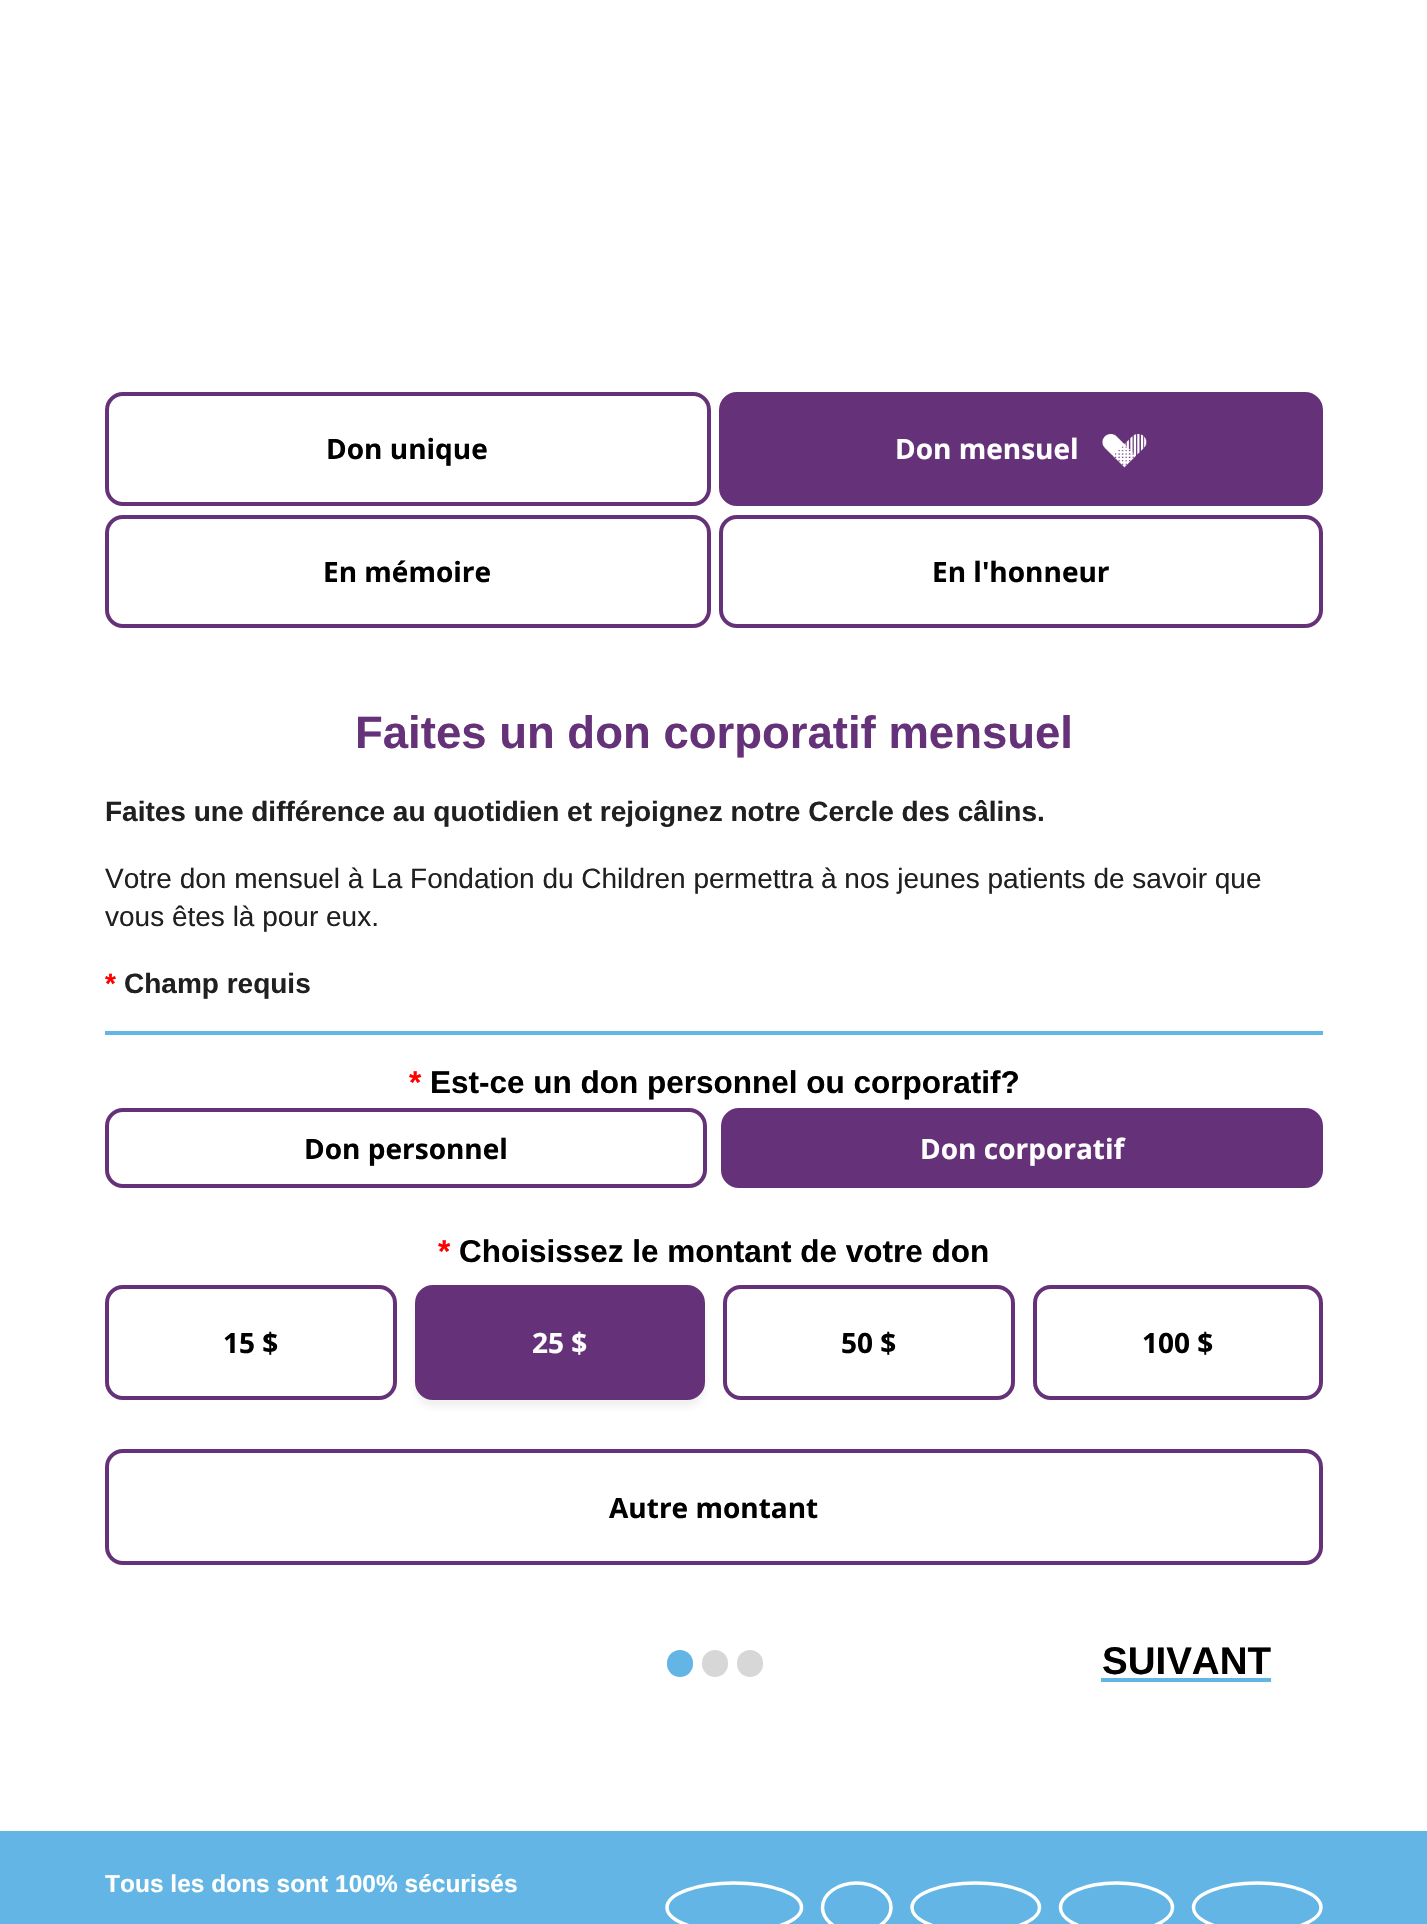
void draw(SkCanvas* canvas) {
	SkPaint paint;
	paint.setAntiAlias(true);
	auto svgPath = [&](const char* data, bool evenOdd = false) {
		SkPath result = *SkParsePath::FromSVGString(data);
		if (evenOdd) result.setFillType(SkPathFillType::kEvenOdd);
		return result;
	};
	canvas->clear(0xffffffff);
	paint.setStroke(true);
	paint.setStrokeWidth(4);
	paint.setColor(0xff653279);
	canvas->drawRoundRect(SkRect::MakeXYWH(107, 394, 602, 110), 16, 16, paint);
	SkFont f1(fontMgr->matchFamilyStyle("Open Sans", SkFontStyle::Bold()), 28);
	f1.setSubpixel(true);
	paint.setStroke(false);
	paint.setColor(0xff000000);
	canvas->drawString("Don unique", 326, 459, f1, paint);
	paint.setColor(0xff653279);
	canvas->drawRoundRect(SkRect::MakeXYWH(721, 394, 600, 110), 16, 16, paint);
	paint.setStroke(true);
	canvas->drawRoundRect(SkRect::MakeXYWH(721, 394, 600, 110), 16, 16, paint);
	paint.setStroke(false);
	paint.setColor(0xffffffff);
	canvas->drawString("Don mensuel", 895, 459, f1, paint);
	canvas->drawImageRect(SkImages::DeferredFromEncodedData(SkData::MakeFromFileName("img1.png")), SkRect::MakeXYWH(1102, 434, 45, 34), SkSamplingOptions());
	paint.setStroke(true);
	paint.setColor(0xff653279);
	canvas->drawRoundRect(SkRect::MakeXYWH(107, 517, 602, 109), 16, 16, paint);
	paint.setStroke(false);
	paint.setColor(0xff000000);
	canvas->drawString("En mémoire", 323, 582, f1, paint);
	paint.setStroke(true);
	paint.setColor(0xff653279);
	canvas->drawRoundRect(SkRect::MakeXYWH(721, 517, 600, 109), 16, 16, paint);
	paint.setStroke(false);
	paint.setColor(0xff000000);
	canvas->drawString("En l'honneur", 932, 582, f1, paint);
	SkFont f2(fontMgr->matchFamilyStyle("Liberation Sans", SkFontStyle::Bold()), 45.5);
	f2.setSubpixel(true);
	paint.setColor(0xff653279);
	canvas->drawString("Faites un don corporatif mensuel", 355, 748, f2, paint);
	SkFont f3(fontMgr->matchFamilyStyle("Liberation Sans", SkFontStyle::Bold()), 28);
	f3.setSubpixel(true);
	paint.setColor(0xff202020);
	canvas->drawString("Faites une différence au quotidien et rejoignez notre Cercle des câlins.", 105, 821, f3, paint);
	SkFont f4(fontMgr->matchFamilyStyle("Liberation Sans", SkFontStyle::Normal()), 28);
	f4.setSubpixel(true);
	canvas->drawString("Votre don mensuel à La Fondation du Children permettra à nos jeunes patients de savoir que", 105, 888, f4, paint);
	canvas->drawString("vous êtes là pour eux.", 105, 926, f4, paint);
	paint.setColor(0xffff0000);
	canvas->drawString("*", 105, 993, f3, paint);
	paint.setColor(0xff202020);
	canvas->drawString("Champ requis", 124, 993, f3, paint);
	paint.setColor(0xff62b5e5);
	canvas->drawRect(SkRect::MakeXYWH(105, 1031, 1218, 4), paint);
	SkFont f5(fontMgr->matchFamilyStyle("Liberation Sans", SkFontStyle::Bold()), 31.5);
	f5.setSubpixel(true);
	paint.setColor(0xffff0000);
	canvas->drawString("*", 409, 1093, f5, paint);
	paint.setColor(0xff000000);
	canvas->drawString("Est-ce un don personnel ou corporatif?", 430, 1093, f5, paint);
	paint.setStroke(true);
	paint.setColor(0xff653279);
	canvas->drawRoundRect(SkRect::MakeXYWH(107, 1110, 598, 76), 16, 16, paint);
	paint.setStroke(false);
	paint.setColor(0xff000000);
	canvas->drawString("Don personnel", 304, 1159, f1, paint);
	paint.setColor(0xff653279);
	canvas->drawRoundRect(SkRect::MakeXYWH(723, 1110, 598, 76), 16, 16, paint);
	paint.setStroke(true);
	canvas->drawRoundRect(SkRect::MakeXYWH(723, 1110, 598, 76), 16, 16, paint);
	paint.setStroke(false);
	paint.setColor(0xffffffff);
	canvas->drawString("Don corporatif", 920, 1159, f1, paint);
	paint.setColor(0xffff0000);
	canvas->drawString("*", 438, 1262, f5, paint);
	paint.setColor(0xff000000);
	canvas->drawString("Choisissez le montant de votre don", 459, 1262, f5, paint);
	paint.setStroke(true);
	paint.setColor(0xff653279);
	canvas->drawRoundRect(SkRect::MakeXYWH(107, 1287, 288, 111), 16, 16, paint);
	paint.setStroke(false);
	paint.setColor(0xff000000);
	canvas->drawString("15 $", 223, 1353, f1, paint);
	paint.setColor(0x40c2c2c2);
	paint.setMaskFilter(SkMaskFilter::MakeBlur(kNormal_SkBlurStyle, 3.5));
	canvas->drawRoundRect(SkRect::MakeXYWH(415, 1292, 290, 115), 18, 18, paint);
	paint.setMaskFilter(nullptr);
	paint.setColor(0xff653279);
	canvas->drawRoundRect(SkRect::MakeXYWH(417, 1287, 286, 111), 16, 16, paint);
	paint.setStroke(true);
	canvas->drawRoundRect(SkRect::MakeXYWH(417, 1287, 286, 111), 16, 16, paint);
	paint.setStroke(false);
	paint.setColor(0xffffffff);
	canvas->drawString("25 $", 532, 1353, f1, paint);
	paint.setStroke(true);
	paint.setColor(0xff653279);
	canvas->drawRoundRect(SkRect::MakeXYWH(725, 1287, 288, 111), 16, 16, paint);
	paint.setStroke(false);
	paint.setColor(0xff000000);
	canvas->drawString("50 $", 841, 1353, f1, paint);
	paint.setStroke(true);
	paint.setColor(0xff653279);
	canvas->drawRoundRect(SkRect::MakeXYWH(1035, 1287, 286, 111), 16, 16, paint);
	paint.setStroke(false);
	paint.setColor(0xff000000);
	canvas->drawString("100 $", 1142, 1353, f1, paint);
	paint.setStroke(true);
	paint.setColor(0xff653279);
	canvas->drawRoundRect(SkRect::MakeXYWH(107, 1451, 1214, 112), 16, 16, paint);
	paint.setStroke(false);
	paint.setColor(0xff000000);
	canvas->drawString("Autre montant", 609, 1518, f1, paint);
	paint.setColor(0xff62b5e5);
	canvas->drawRoundRect(SkRect::MakeXYWH(667, 1650, 26, 27), 13, 13, paint);
	paint.setColor(0xffd7d7d7);
	canvas->drawRoundRect(SkRect::MakeXYWH(702, 1650, 26, 27), 13, 13, paint);
	canvas->drawRoundRect(SkRect::MakeXYWH(737, 1650, 26, 27), 13, 13, paint);
	paint.setColor(0xff62b5e5);
	canvas->drawRect(SkRect::MakeXYWH(1101, 1678, 170, 4), paint);
	SkFont f6(fontMgr->matchFamilyStyle("Liberation Sans", SkFontStyle::Bold()), 38.5);
	f6.setSubpixel(true);
	paint.setColor(0xff000000);
	canvas->drawString("SUIVANT", 1102, 1674, f6, paint);
	paint.setColor(0xff62b5e5);
	canvas->drawRect(SkRect::MakeXYWH(0, 1831, 1427, 93), paint);
	SkFont f7(fontMgr->matchFamilyStyle("Liberation Sans", SkFontStyle::Bold()), 24.5);
	f7.setSubpixel(true);
	paint.setColor(0xffffffff);
	canvas->drawString("Tous les dons sont 100% sécurisés", 105, 1892, f7, paint);
	paint.setStroke(true);
	paint.setStrokeWidth(3.5);
	canvas->drawPath(svgPath("M734 1883C771.5 1883 801.5 1894 801.5 1907.5C801.5 1921 771.5 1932 734 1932C697 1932 667 1921 667 1907.5C667 1894 697 1883 734 1883Z"), paint);
	canvas->drawPath(svgPath("M856.5 1883C875.5 1883 891 1894 891 1907.5C891 1921 875.5 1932 856.5 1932C838 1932 822.5 1921 822.5 1907.5C822.5 1894 838 1883 856.5 1883Z"), paint);
	canvas->drawPath(svgPath("M975.5 1883C1011 1883 1039.5 1894 1039.5 1907.5C1039.5 1921 1011 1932 975.5 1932C940.5 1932 912 1921 912 1907.5C912 1894 940.5 1883 975.5 1883Z"), paint);
	canvas->drawPath(svgPath("M1116.5 1883C1147.5 1883 1172.5 1894 1172.5 1907.5C1172.5 1921 1147.5 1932 1116.5 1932C1085.5 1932 1060.5 1921 1060.5 1907.5C1060.5 1894 1085.5 1883 1116.5 1883Z"), paint);
	canvas->drawPath(svgPath("M1257.5 1883C1292.5 1883 1321 1894 1321 1907.5C1321 1921 1292.5 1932 1257.5 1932C1222 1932 1193.5 1921 1193.5 1907.5C1193.5 1894 1222 1883 1257.5 1883Z"), paint);
}
